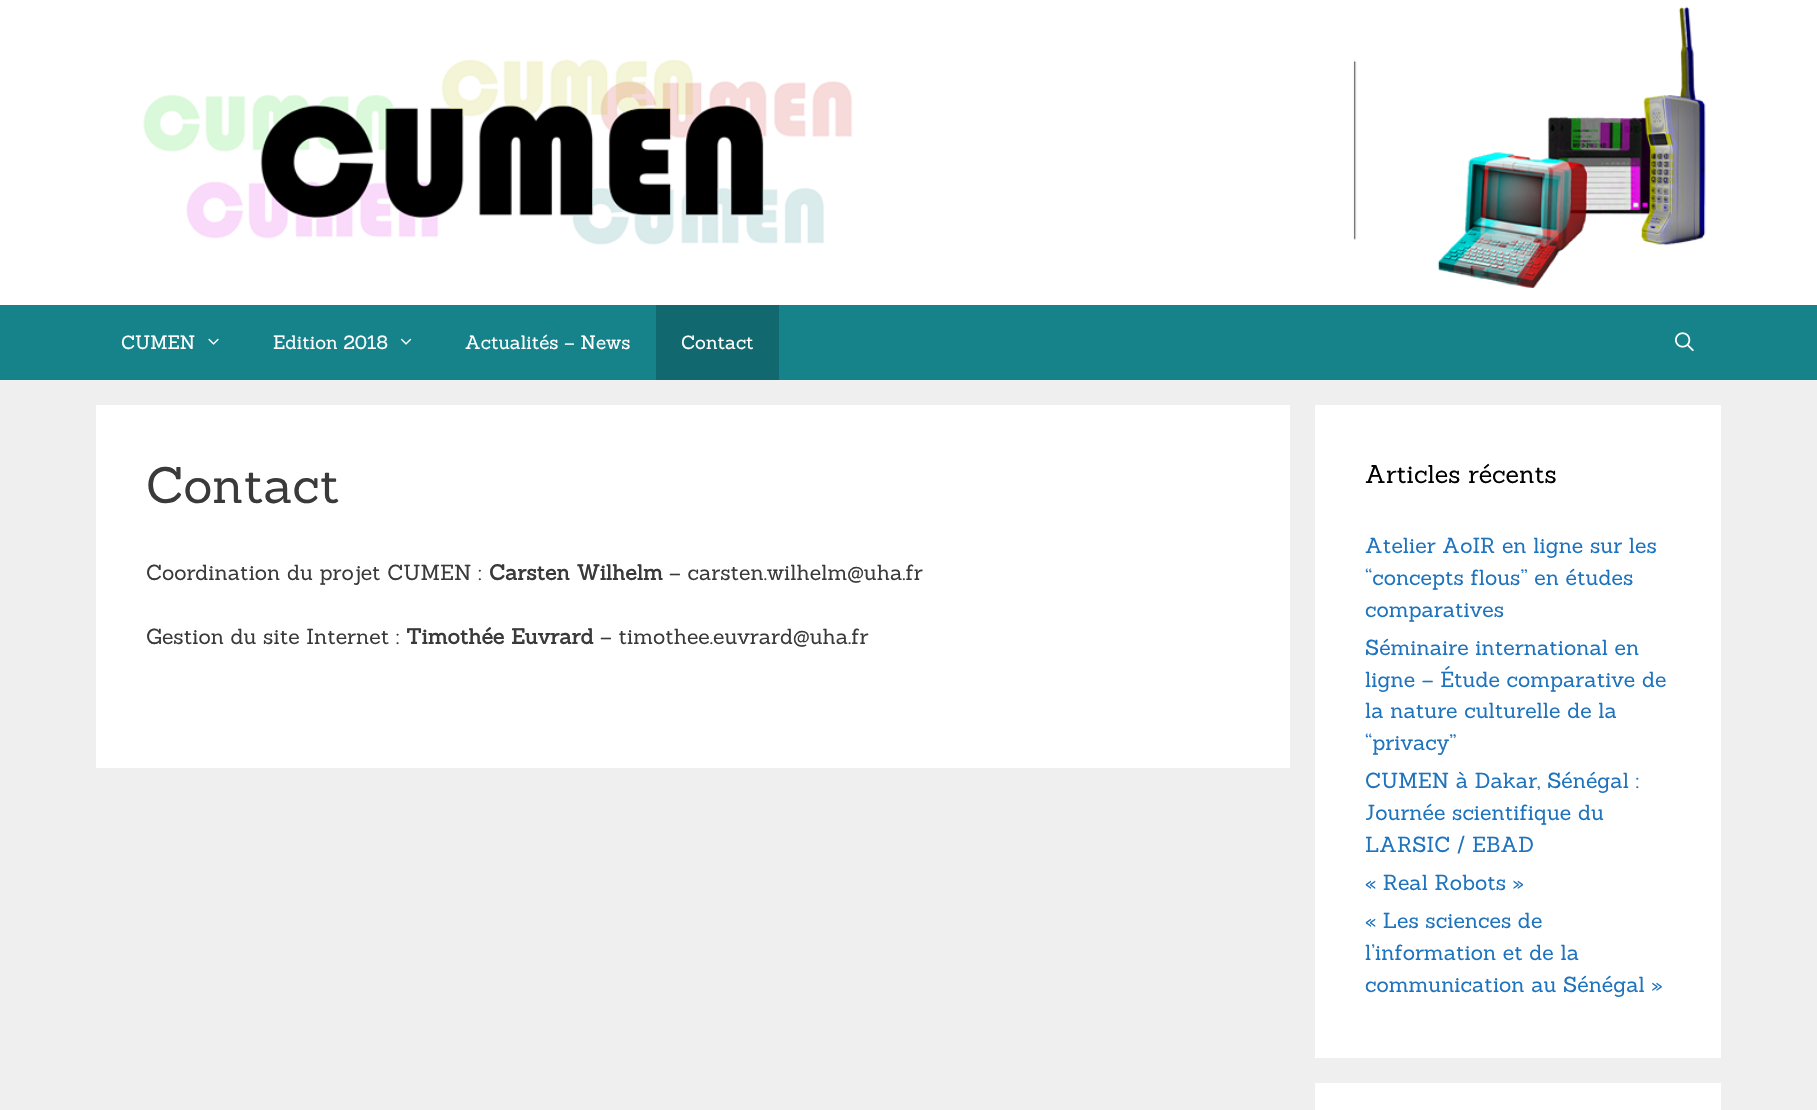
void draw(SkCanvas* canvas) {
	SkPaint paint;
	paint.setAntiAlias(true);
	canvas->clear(0xffefefef);
	paint.setColor(0xffffffff);
	canvas->drawRect(SkRect::MakeXYWH(0, 0, 1817, 305), paint);
	canvas->drawImageRect(SkImages::DeferredFromEncodedData(SkData::MakeFromFileName("img1.png")), SkRect::MakeXYWH(143, 6, 1563, 282), SkSamplingOptions());
	paint.setColor(0xff168289);
	canvas->drawRect(SkRect::MakeXYWH(0, 305, 1817, 75), paint);
	SkFont f1(fontMgr->matchFamilyStyle("Sanchez", SkFontStyle::Normal()), 18.75);
	f1.setSubpixel(true);
	paint.setColor(0xffffffff);
	canvas->drawString("CUMEN", 121, 349, f1, paint);
	canvas->drawImageRect(SkImages::DeferredFromEncodedData(SkData::MakeFromFileName("img2.png")), SkRect::MakeXYWH(208, 338, 11, 7), SkSamplingOptions());
	canvas->drawString("Edition 2018", 273, 349, f1, paint);
	canvas->drawImageRect(SkImages::DeferredFromEncodedData(SkData::MakeFromFileName("img3.png")), SkRect::MakeXYWH(400, 338, 12, 7), SkSamplingOptions());
	canvas->drawString("Actualités – News", 465, 349, f1, paint);
	paint.setColor(0xff11686e);
	canvas->drawRect(SkRect::MakeXYWH(656, 305, 123, 75), paint);
	paint.setColor(0xffffffff);
	canvas->drawString("Contact", 681, 349, f1, paint);
	canvas->drawImageRect(SkImages::DeferredFromEncodedData(SkData::MakeFromFileName("img4.png")), SkRect::MakeXYWH(1675, 332, 19, 19), SkSamplingOptions());
	canvas->drawRect(SkRect::MakeXYWH(96, 405, 1194, 363), paint);
	SkFont f2(fontMgr->matchFamilyStyle("Sanchez", SkFontStyle::Normal()), 50);
	f2.setSubpixel(true);
	paint.setColor(0xff3a3a3a);
	canvas->drawString("Contact", 146, 503, f2, paint);
	SkFont f3(fontMgr->matchFamilyStyle("Sanchez", SkFontStyle::Normal()), 21.25);
	f3.setSubpixel(true);
	canvas->drawString("Coordination du projet CUMEN :", 146, 580, f3, paint);
	SkFont f4(fontMgr->matchFamilyStyle("Sanchez", SkFontStyle::Bold()), 21.25);
	f4.setSubpixel(true);
	canvas->drawString("Carsten Wilhelm", 489, 580, f4, paint);
	canvas->drawString("– carsten.wilhelm@uha.fr", 669, 580, f3, paint);
	canvas->drawString("Gestion du site Internet :", 146, 644, f3, paint);
	canvas->drawString("Timothée Euvrard", 406, 644, f4, paint);
	canvas->drawString("– timothee.euvrard@uha.fr", 600, 644, f3, paint);
	paint.setColor(0xffffffff);
	canvas->drawRect(SkRect::MakeXYWH(1315, 405, 406, 653), paint);
	SkFont f5(fontMgr->matchFamilyStyle("Sanchez", SkFontStyle::Normal()), 25);
	f5.setSubpixel(true);
	paint.setColor(0xff000000);
	canvas->drawString("Articles récents", 1365, 483, f5, paint);
	paint.setColor(0xff1e73be);
	canvas->drawString("Atelier AoIR en ligne sur les", 1365, 553, f3, paint);
	canvas->drawString("“concepts flous” en études", 1365, 585, f3, paint);
	canvas->drawString("comparatives", 1365, 617, f3, paint);
	canvas->drawString("Séminaire international en", 1365, 655, f3, paint);
	canvas->drawString("ligne – Étude comparative de", 1365, 687, f3, paint);
	canvas->drawString("la nature culturelle de la", 1365, 718, f3, paint);
	canvas->drawString("“privacy”", 1365, 750, f3, paint);
	canvas->drawString("CUMEN à Dakar, Sénégal :", 1365, 788, f3, paint);
	canvas->drawString("Journée scientifique du", 1365, 820, f3, paint);
	canvas->drawString("LARSIC / EBAD", 1365, 852, f3, paint);
	canvas->drawString("« Real Robots »", 1365, 890, f3, paint);
	canvas->drawString("« Les sciences de", 1365, 928, f3, paint);
	canvas->drawString("l’information et de la", 1365, 960, f3, paint);
	canvas->drawString("communication au Sénégal »", 1365, 992, f3, paint);
	paint.setColor(0xffffffff);
	canvas->drawRect(SkRect::MakeXYWH(1315, 1083, 406, 27), paint);
}
